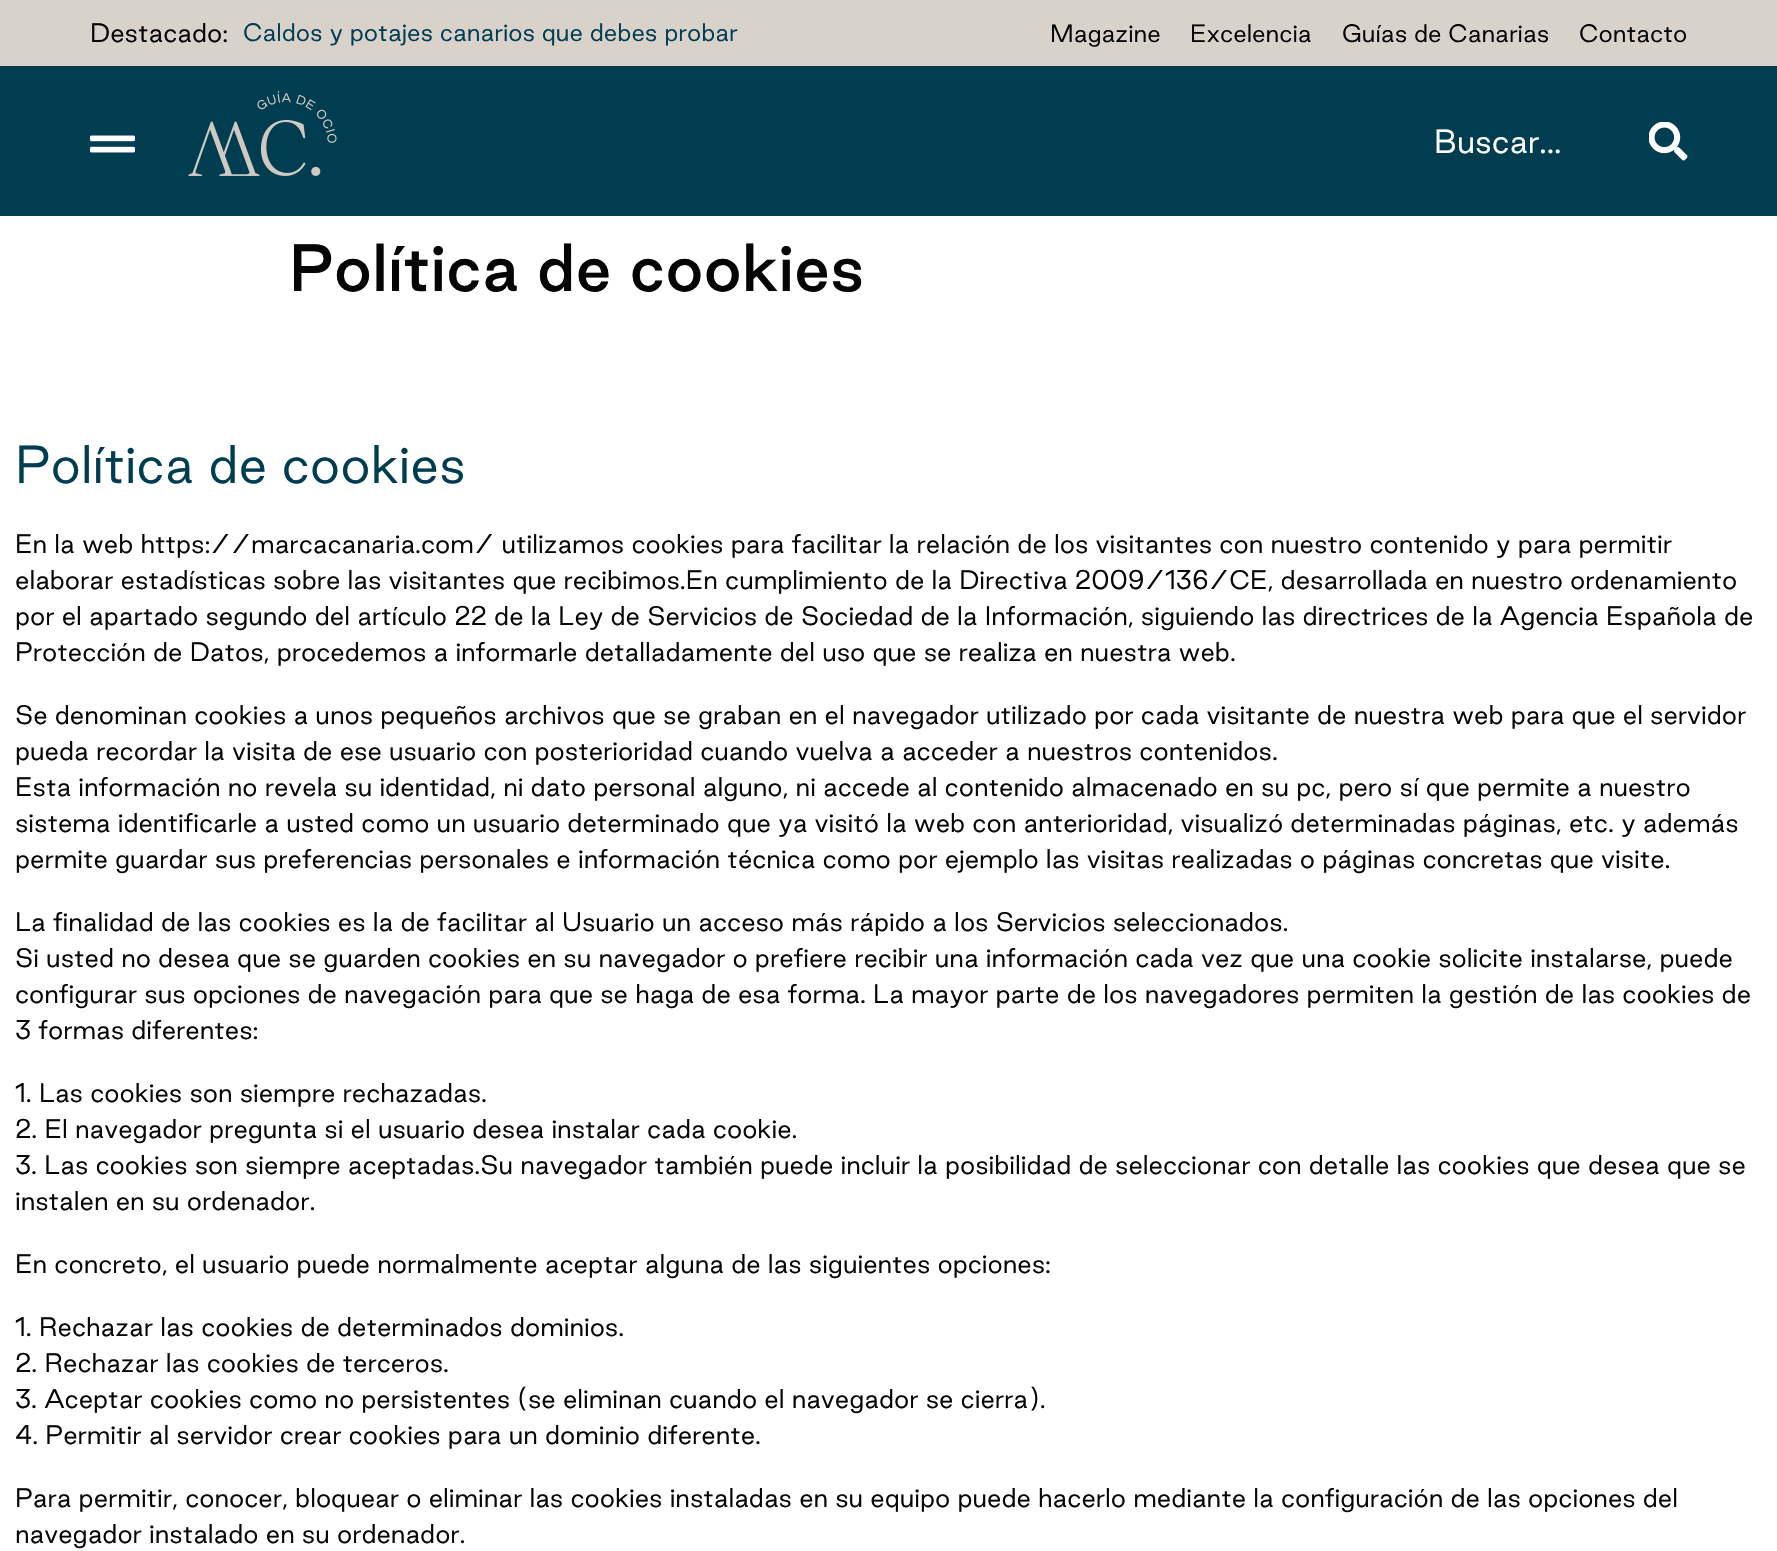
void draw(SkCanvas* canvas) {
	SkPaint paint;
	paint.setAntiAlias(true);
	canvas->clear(0xffffffff);
	paint.setColor(0xffd9d2cb);
	canvas->drawRect(SkRect::MakeXYWH(0, 0, 1777, 66), paint);
	SkFont f1(fontMgr->matchFamilyStyle("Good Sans", SkFontStyle(300, SkFontStyle::kNormal_Width, SkFontStyle::kUpright_Slant)), 24);
	f1.setSubpixel(true);
	paint.setColor(0xff050505);
	canvas->drawString("Destacado:", 90, 42, f1, paint);
	SkFont f2(fontMgr->matchFamilyStyle("Good Sans", SkFontStyle(300, SkFontStyle::kNormal_Width, SkFontStyle::kUpright_Slant)), 22.5);
	f2.setSubpixel(true);
	paint.setColor(0xff003d51);
	canvas->drawString("Caldos y potajes canarios que debes probar", 243, 41, f2, paint);
	paint.setColor(0xff050505);
	canvas->drawString("Magazine", 1050, 42, f2, paint);
	canvas->drawString("Excelencia", 1190, 42, f2, paint);
	canvas->drawString("Guías de Canarias", 1342, 42, f2, paint);
	canvas->drawString("Contacto", 1579, 42, f2, paint);
	paint.setColor(0xff003d51);
	canvas->drawRect(SkRect::MakeXYWH(0, 66, 1777, 150), paint);
	canvas->drawImageRect(SkImages::DeferredFromEncodedData(SkData::MakeFromFileName("img1.png")), SkRect::MakeXYWH(90, 135, 45, 18), SkSamplingOptions());
	canvas->drawImageRect(SkImages::DeferredFromEncodedData(SkData::MakeFromFileName("img2.png")), SkRect::MakeXYWH(188, 91, 149, 85), SkSamplingOptions());
	SkFont f3(fontMgr->matchFamilyStyle("Good Sans", SkFontStyle(300, SkFontStyle::kNormal_Width, SkFontStyle::kUpright_Slant)), 30);
	f3.setSubpixel(true);
	paint.setColor(0xffffffff);
	canvas->drawString("Buscar...", 1434, 153, f3, paint);
	canvas->drawImageRect(SkImages::DeferredFromEncodedData(SkData::MakeFromFileName("img3.png")), SkRect::MakeXYWH(1649, 122, 39, 39), SkSamplingOptions());
	SkFont f4(fontMgr->matchFamilyStyle("Good Sans", SkFontStyle(500, SkFontStyle::kNormal_Width, SkFontStyle::kUpright_Slant)), 60);
	f4.setSubpixel(true);
	paint.setColor(0xff050505);
	canvas->drawString("Política de cookies", 289, 291, f4, paint);
	SkFont f5(fontMgr->matchFamilyStyle("Good Sans", SkFontStyle(300, SkFontStyle::kNormal_Width, SkFontStyle::kUpright_Slant)), 48);
	f5.setSubpixel(true);
	paint.setColor(0xff003d51);
	canvas->drawString("Política de cookies", 15, 483, f5, paint);
	paint.setColor(0xff050505);
	canvas->drawString("En la web https://marcacanaria.com/ utilizamos cookies para facilitar la relación de los visitantes con nuestro contenido y para permitir", 15, 553, f1, paint);
	canvas->drawString("elaborar estadísticas sobre las visitantes que recibimos.En cumplimiento de la Directiva 2009/136/CE, desarrollada en nuestro ordenamiento", 15, 589, f1, paint);
	canvas->drawString("por el apartado segundo del artículo 22 de la Ley de Servicios de Sociedad de la Información, siguiendo las directrices de la Agencia Española de", 15, 625, f1, paint);
	canvas->drawString("Protección de Datos, procedemos a informarle detalladamente del uso que se realiza en nuestra web.", 15, 661, f1, paint);
	canvas->drawString("Se denominan cookies a unos pequeños archivos que se graban en el navegador utilizado por cada visitante de nuestra web para que el servidor", 15, 724, f1, paint);
	canvas->drawString("pueda recordar la visita de ese usuario con posterioridad cuando vuelva a acceder a nuestros contenidos.", 15, 760, f1, paint);
	canvas->drawString("Esta información no revela su identidad, ni dato personal alguno, ni accede al contenido almacenado en su pc, pero sí que permite a nuestro", 15, 796, f1, paint);
	canvas->drawString("sistema identificarle a usted como un usuario determinado que ya visitó la web con anterioridad, visualizó determinadas páginas, etc. y además", 15, 832, f1, paint);
	canvas->drawString("permite guardar sus preferencias personales e información técnica como por ejemplo las visitas realizadas o páginas concretas que visite.", 15, 868, f1, paint);
	canvas->drawString("La finalidad de las cookies es la de facilitar al Usuario un acceso más rápido a los Servicios seleccionados.", 15, 931, f1, paint);
	canvas->drawString("Si usted no desea que se guarden cookies en su navegador o prefiere recibir una información cada vez que una cookie solicite instalarse, puede", 15, 967, f1, paint);
	canvas->drawString("configurar sus opciones de navegación para que se haga de esa forma. La mayor parte de los navegadores permiten la gestión de las cookies de", 15, 1003, f1, paint);
	canvas->drawString("3 formas diferentes:", 15, 1039, f1, paint);
	canvas->drawString("1. Las cookies son siempre rechazadas.", 15, 1102, f1, paint);
	canvas->drawString("2. El navegador pregunta si el usuario desea instalar cada cookie.", 15, 1138, f1, paint);
	canvas->drawString("3. Las cookies son siempre aceptadas.Su navegador también puede incluir la posibilidad de seleccionar con detalle las cookies que desea que se", 15, 1174, f1, paint);
	canvas->drawString("instalen en su ordenador.", 15, 1210, f1, paint);
	canvas->drawString("En concreto, el usuario puede normalmente aceptar alguna de las siguientes opciones:", 15, 1273, f1, paint);
	canvas->drawString("1. Rechazar las cookies de determinados dominios.", 15, 1336, f1, paint);
	canvas->drawString("2. Rechazar las cookies de terceros.", 15, 1372, f1, paint);
	canvas->drawString("3. Aceptar cookies como no persistentes (se eliminan cuando el navegador se cierra).", 15, 1408, f1, paint);
	canvas->drawString("4. Permitir al servidor crear cookies para un dominio diferente.", 15, 1444, f1, paint);
	canvas->drawString("Para permitir, conocer, bloquear o eliminar las cookies instaladas en su equipo puede hacerlo mediante la configuración de las opciones del", 15, 1507, f1, paint);
	canvas->drawString("navegador instalado en su ordenador.", 15, 1543, f1, paint);
}
